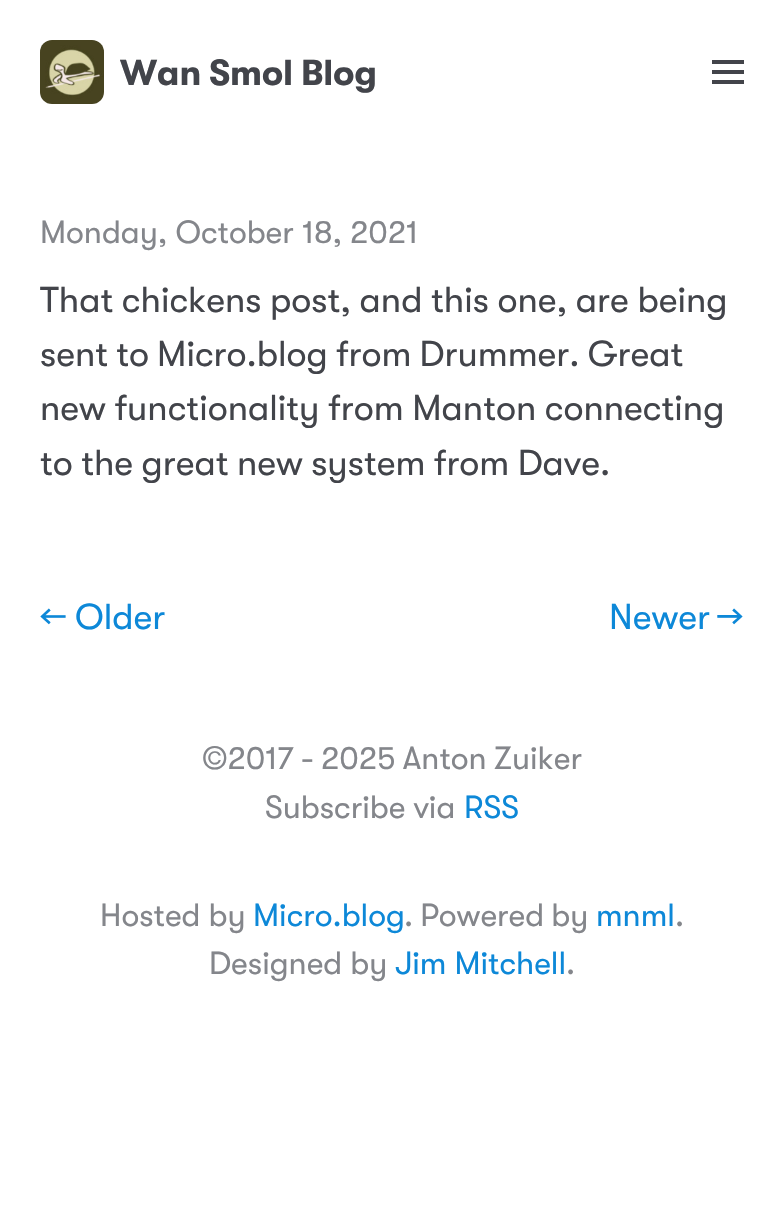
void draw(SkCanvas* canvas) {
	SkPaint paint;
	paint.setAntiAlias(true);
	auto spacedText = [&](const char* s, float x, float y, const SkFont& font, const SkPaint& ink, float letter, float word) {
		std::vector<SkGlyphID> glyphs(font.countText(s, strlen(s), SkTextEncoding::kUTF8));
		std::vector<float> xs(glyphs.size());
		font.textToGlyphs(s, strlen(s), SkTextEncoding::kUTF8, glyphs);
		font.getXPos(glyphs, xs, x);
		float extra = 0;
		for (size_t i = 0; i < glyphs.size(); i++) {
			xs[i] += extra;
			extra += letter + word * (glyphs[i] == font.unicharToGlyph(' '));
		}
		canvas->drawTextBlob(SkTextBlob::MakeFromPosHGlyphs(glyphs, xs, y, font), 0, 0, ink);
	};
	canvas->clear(0xffffffff);
	canvas->drawImageRect(SkImages::DeferredFromEncodedData(SkData::MakeFromFileName("img1.png")), SkRect::MakeXYWH(40, 40, 64, 64), SkSamplingOptions());
	SkFont f1(fontMgr->matchFamilyStyle("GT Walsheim", SkFontStyle::Bold()), 36);
	f1.setSubpixel(true);
	paint.setColor(0xff42444a);
	spacedText("Wan Smol Blog", 120, 85, f1, paint, 0, -1);
	canvas->drawRect(SkRect::MakeXYWH(712, 60, 32, 4), paint);
	canvas->drawRect(SkRect::MakeXYWH(712, 70, 32, 4), paint);
	canvas->drawRect(SkRect::MakeXYWH(712, 80, 32, 4), paint);
	SkFont f2(fontMgr->matchFamilyStyle("GT Walsheim", SkFontStyle::Normal()), 32);
	f2.setSubpixel(true);
	paint.setColor(0xff84868b);
	canvas->drawString("Monday, October 18, 2021", 40, 243, f2, paint);
	SkFont f3(fontMgr->matchFamilyStyle("GT Walsheim", SkFontStyle::Normal()), 36);
	f3.setSubpixel(true);
	paint.setColor(0xff42444a);
	spacedText("That chickens post, and this one, are being", 40, 312, f3, paint, 0, -0.5);
	spacedText("sent to Micro.blog from Drummer. Great", 40, 366, f3, paint, 0, -1);
	spacedText("new functionality from Manton connecting", 40, 420, f3, paint, 0, -0.5);
	spacedText("to the great new system from Dave.", 40, 475, f3, paint, 0, -0.75);
	paint.setColor(0xff0d88d8);
	canvas->drawString("← Older", 40, 629, f3, paint);
	spacedText("Newer →", 609, 629, f3, paint, 0, -2);
	paint.setColor(0xff84868b);
	spacedText("©2017 - 2025 Anton Zuiker", 202, 769, f2, paint, 0, -1);
	canvas->drawString("Subscribe via", 265, 818, f2, paint);
	paint.setColor(0xff0d88d8);
	canvas->drawString("RSS", 464, 818, f2, paint);
	paint.setColor(0xff84868b);
	canvas->drawString("Hosted by", 100, 926, f2, paint);
	paint.setColor(0xff0d88d8);
	canvas->drawString("Micro.blog", 253, 926, f2, paint);
	paint.setColor(0xff84868b);
	spacedText(". Powered by", 404, 926, f2, paint, 0, -1);
	paint.setColor(0xff0d88d8);
	canvas->drawString("mnml", 596, 926, f2, paint);
	paint.setColor(0xff84868b);
	canvas->drawString(".", 675, 926, f2, paint);
	canvas->drawString("Designed by", 209, 974, f2, paint);
	paint.setColor(0xff0d88d8);
	canvas->drawString("Jim Mitchell", 395, 974, f2, paint);
	paint.setColor(0xff84868b);
	canvas->drawString(".", 566, 974, f2, paint);
}
